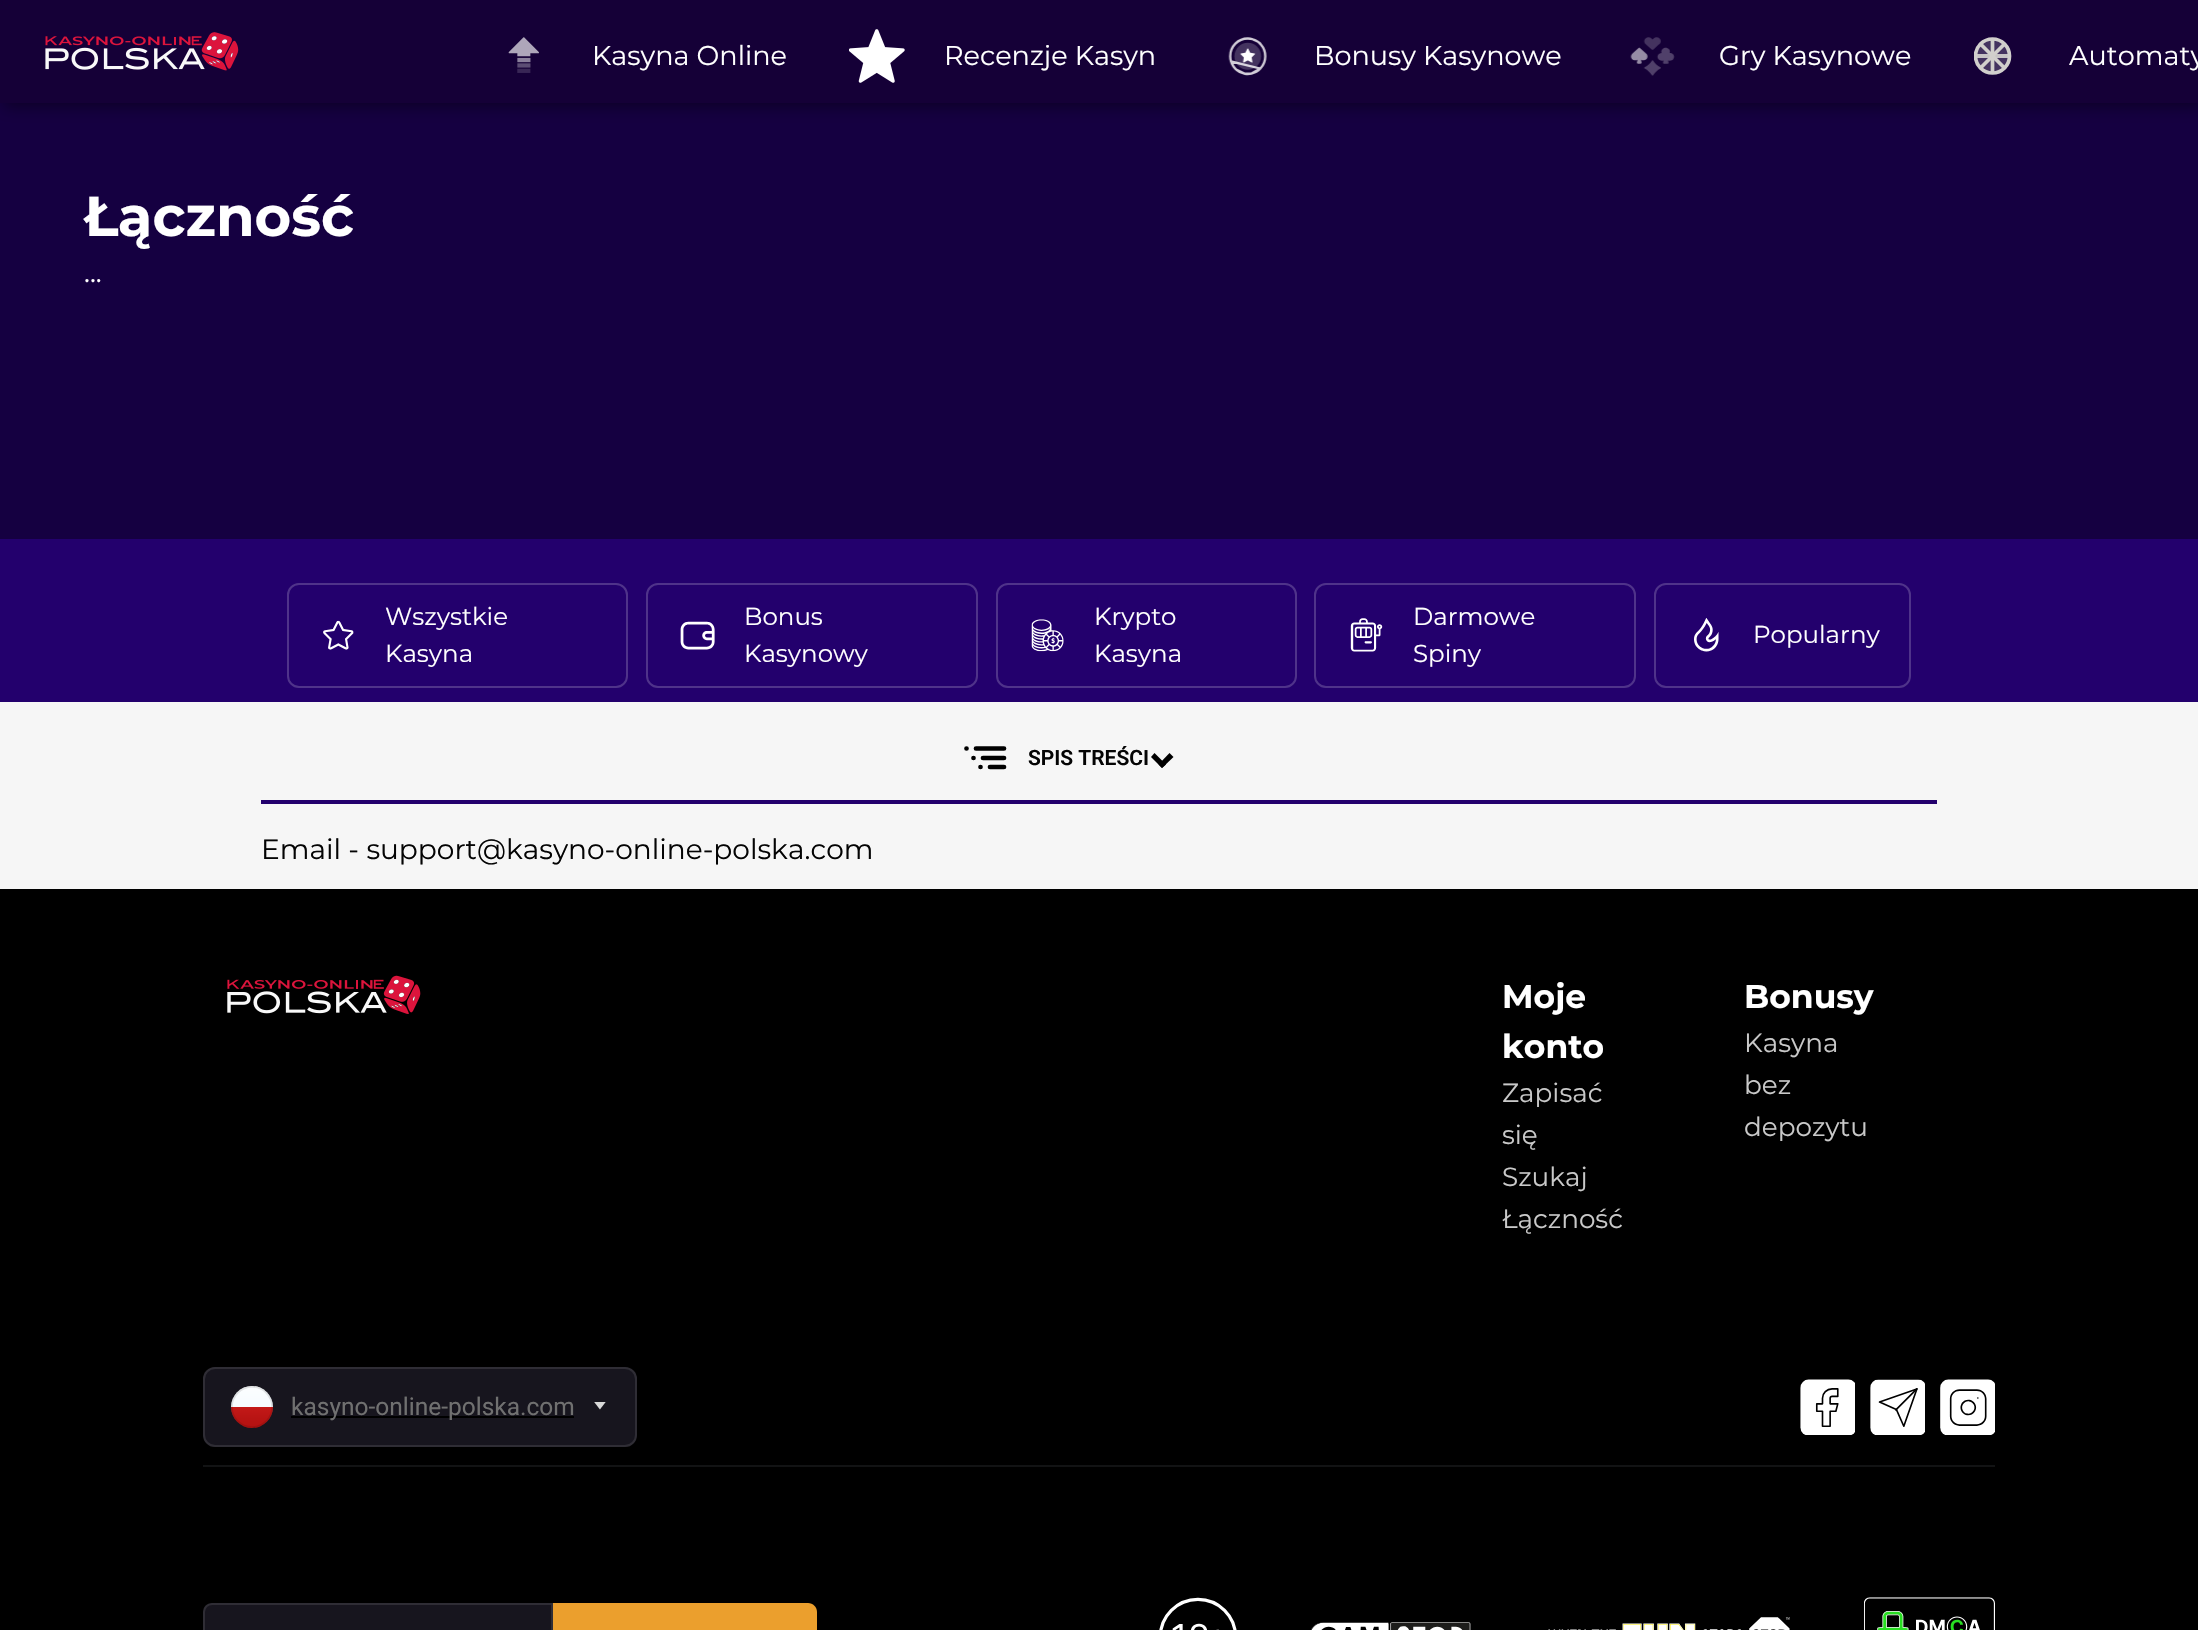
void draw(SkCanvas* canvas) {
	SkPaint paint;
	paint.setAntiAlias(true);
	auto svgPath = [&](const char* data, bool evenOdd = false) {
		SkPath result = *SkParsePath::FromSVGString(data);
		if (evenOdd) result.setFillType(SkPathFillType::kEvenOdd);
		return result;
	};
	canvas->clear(0xff000000);
	paint.setColor(0xff150041);
	canvas->drawRect(SkRect::MakeXYWH(0, 103, 2198, 436), paint);
	paint.setColor(0x66000000);
	paint.setMaskFilter(SkMaskFilter::MakeBlur(kNormal_SkBlurStyle, 7));
	canvas->drawRect(SkRect::MakeXYWH(4, 4, 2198, 103), paint);
	paint.setMaskFilter(nullptr);
	paint.setColor(0xff150037);
	canvas->drawRect(SkRect::MakeXYWH(0, 0, 2198, 103), paint);
	canvas->drawImageRect(SkImages::DeferredFromEncodedData(SkData::MakeFromFileName("img1.png")), SkRect::MakeXYWH(45, 32, 194, 39), SkSamplingOptions());
	canvas->drawImageRect(SkImages::DeferredFromEncodedData(SkData::MakeFromFileName("img2.png")), SkRect::MakeXYWH(508, 37, 31, 36), SkSamplingOptions());
	SkFont f1(fontMgr->matchFamilyStyle("Montserrat", SkFontStyle::Normal()), 27.1);
	f1.setSubpixel(true);
	paint.setColor(0xffffffff);
	canvas->drawString("Kasyna Online", 592, 65, f1, paint);
	canvas->drawImageRect(SkImages::DeferredFromEncodedData(SkData::MakeFromFileName("img3.png")), SkRect::MakeXYWH(849, 29, 56, 54), SkSamplingOptions());
	canvas->drawString("Recenzje Kasyn", 944, 65, f1, paint);
	canvas->drawImageRect(SkImages::DeferredFromEncodedData(SkData::MakeFromFileName("img4.png")), SkRect::MakeXYWH(1228, 37, 39, 39), SkSamplingOptions());
	canvas->drawString("Bonusy Kasynowe", 1314, 65, f1, paint);
	canvas->drawImageRect(SkImages::DeferredFromEncodedData(SkData::MakeFromFileName("img5.png")), SkRect::MakeXYWH(1630, 37, 45, 39), SkSamplingOptions());
	canvas->drawString("Gry Kasynowe", 1719, 65, f1, paint);
	paint.setColor(0xff443360);
	canvas->drawCircle(1992.5, 56, 17, paint);
	canvas->save();
	canvas->clipRect(SkRect::MakeXYWH(1974, 28, 56, 56));
	paint.setStroke(true);
	paint.setStrokeWidth(3.7);
	paint.setColor(0xffd1cfcc);
	canvas->drawCircle(1992.5, 56, 17, paint);
	canvas->restore();
	canvas->drawPath(svgPath("M1992.5 39V73"), paint);
	paint.setStroke(false);
	paint.setColor(0xedd1cfcc);
	canvas->drawRect(SkRect::MakeXYWH(1976, 54, 34, 4), paint);
	paint.setStroke(true);
	paint.setColor(0xffd1cfcc);
	canvas->drawPath(svgPath("M1979.5 43L2005.5 69M1979.5 69L2005.5 43"), paint);
	paint.setStroke(false);
	paint.setColor(0xffffffff);
	canvas->drawString("Automaty", 2069, 65, f1, paint);
	SkFont f2(fontMgr->matchFamilyStyle("Montserrat", SkFontStyle::Bold()), 56);
	f2.setSubpixel(true);
	canvas->drawString("Łączność", 84, 236, f2, paint);
	SkFont f3(fontMgr->matchFamilyStyle("Montserrat", SkFontStyle::Normal()), 28);
	f3.setSubpixel(true);
	canvas->drawString("...", 84, 282, f3, paint);
	paint.setColor(0xff23006d);
	canvas->drawRect(SkRect::MakeXYWH(0, 539, 2198, 163), paint);
	paint.setStroke(true);
	paint.setStrokeWidth(2);
	paint.setColor(0xff4f338a);
	canvas->drawRoundRect(SkRect::MakeXYWH(288, 584, 339, 103), 11, 11, paint);
	canvas->drawImageRect(SkImages::DeferredFromEncodedData(SkData::MakeFromFileName("img6.png")), SkRect::MakeXYWH(323, 620, 31, 30), SkSamplingOptions());
	SkFont f4(fontMgr->matchFamilyStyle("Montserrat", SkFontStyle::Normal()), 24.5);
	f4.setSubpixel(true);
	paint.setStroke(false);
	paint.setColor(0xffffffff);
	canvas->drawString("Wszystkie", 385, 625, f4, paint);
	canvas->drawString("Kasyna", 385, 662, f4, paint);
	paint.setStroke(true);
	paint.setColor(0xff4f338a);
	canvas->drawRoundRect(SkRect::MakeXYWH(647, 584, 330, 103), 11, 11, paint);
	canvas->drawImageRect(SkImages::DeferredFromEncodedData(SkData::MakeFromFileName("img7.png")), SkRect::MakeXYWH(680, 621, 35, 29), SkSamplingOptions());
	paint.setStroke(false);
	paint.setColor(0xffffffff);
	canvas->drawString("Bonus", 744, 625, f4, paint);
	canvas->drawString("Kasynowy", 744, 662, f4, paint);
	paint.setStroke(true);
	paint.setColor(0xff4f338a);
	canvas->drawRoundRect(SkRect::MakeXYWH(997, 584, 299, 103), 11, 11, paint);
	canvas->drawImageRect(SkImages::DeferredFromEncodedData(SkData::MakeFromFileName("img8.png")), SkRect::MakeXYWH(1031, 619, 33, 33), SkSamplingOptions());
	paint.setStroke(false);
	paint.setColor(0xffffffff);
	canvas->drawString("Krypto", 1094, 625, f4, paint);
	canvas->drawString("Kasyna", 1094, 662, f4, paint);
	paint.setStroke(true);
	paint.setColor(0xff4f338a);
	canvas->drawRoundRect(SkRect::MakeXYWH(1315, 584, 320, 103), 11, 11, paint);
	canvas->drawImageRect(SkImages::DeferredFromEncodedData(SkData::MakeFromFileName("img9.png")), SkRect::MakeXYWH(1350, 618, 33, 34), SkSamplingOptions());
	paint.setStroke(false);
	paint.setColor(0xffffffff);
	canvas->drawString("Darmowe", 1413, 625, f4, paint);
	canvas->drawString("Spiny", 1413, 662, f4, paint);
	paint.setStroke(true);
	paint.setColor(0xff4f338a);
	canvas->drawRoundRect(SkRect::MakeXYWH(1655, 584, 255, 103), 11, 11, paint);
	canvas->drawImageRect(SkImages::DeferredFromEncodedData(SkData::MakeFromFileName("img10.png")), SkRect::MakeXYWH(1694, 618, 25, 34), SkSamplingOptions());
	paint.setStroke(false);
	paint.setColor(0xffffffff);
	canvas->drawString("Popularny", 1753, 643, f4, paint);
	paint.setColor(0xfff6f6f6);
	canvas->drawRect(SkRect::MakeXYWH(0, 702, 2198, 187), paint);
	paint.setColor(0xff23006d);
	canvas->drawRect(SkRect::MakeXYWH(261, 800, 1676, 4), paint);
	paint.setStroke(true);
	paint.setStrokeWidth(4.7);
	paint.setStrokeCap(SkPaint::kRound_Cap);
	paint.setStrokeJoin(SkPaint::kRound_Join);
	paint.setColor(0xff000000);
	canvas->drawPath(svgPath("M976 748.5H1004M983 758H1004M990 767H1004M966.5 748.5H966.5M973.5 758H973.5M980.5 767H980.5"), paint);
	SkFont f5(fontMgr->matchFamilyStyle("Roboto", SkFontStyle(600, SkFontStyle::kNormal_Width, SkFontStyle::kUpright_Slant)), 21);
	f5.setSubpixel(true);
	paint.setStroke(false);
	paint.setColor(0xff040404);
	canvas->drawString("SPIS TREŚCI", 1028, 765, f5, paint);
	paint.setColor(0xff000000);
	canvas->drawPath(svgPath("M1169.5 753L1173.5 757L1162 768L1158.5 764.5Z"), paint);
	canvas->drawPath(svgPath("M1154.5 753L1166 764.5L1162 768L1151 757Z"), paint);
	paint.setColor(0xff040404);
	canvas->drawString("Email - support@kasyno-online-polska.com", 261, 859, f3, paint);
	canvas->drawImageRect(SkImages::DeferredFromEncodedData(SkData::MakeFromFileName("img11.png")), SkRect::MakeXYWH(227, 975, 194, 39), SkSamplingOptions());
	SkFont f6(fontMgr->matchFamilyStyle("Montserrat", SkFontStyle::Bold()), 33);
	f6.setSubpixel(true);
	paint.setColor(0xffffffff);
	canvas->drawString("Moje", 1502, 1008, f6, paint);
	canvas->drawString("konto", 1502, 1058, f6, paint);
	SkFont f7(fontMgr->matchFamilyStyle("Montserrat", SkFontStyle::Normal()), 26.25);
	f7.setSubpixel(true);
	paint.setColor(0xffc9c9c9);
	canvas->drawString("Zapisać", 1502, 1102, f7, paint);
	canvas->drawString("się", 1502, 1144, f7, paint);
	canvas->drawString("Szukaj", 1502, 1186, f7, paint);
	canvas->drawString("Łączność", 1502, 1228, f7, paint);
	paint.setColor(0xffffffff);
	canvas->drawString("Bonusy", 1744, 1008, f6, paint);
	paint.setColor(0xffc9c9c9);
	canvas->drawString("Kasyna", 1744, 1052, f7, paint);
	canvas->drawString("bez", 1744, 1094, f7, paint);
	canvas->drawString("depozytu", 1744, 1136, f7, paint);
	paint.setColor(0xff17151e);
	canvas->drawRoundRect(SkRect::MakeXYWH(203, 1367, 434, 80), 12, 12, paint);
	paint.setStroke(true);
	paint.setStrokeWidth(2);
	paint.setStrokeCap(SkPaint::kButt_Cap);
	paint.setStrokeJoin(SkPaint::kMiter_Join);
	paint.setColor(0x1affffff);
	canvas->drawRoundRect(SkRect::MakeXYWH(204, 1368, 432, 78), 11, 11, paint);
	canvas->drawImageRect(SkImages::DeferredFromEncodedData(SkData::MakeFromFileName("img12.png")), SkRect::MakeXYWH(231, 1386, 42, 42), SkSamplingOptions());
	paint.setStroke(false);
	paint.setColor(0xff000000);
	canvas->drawRect(SkRect::MakeXYWH(291, 1416, 283, 2), paint);
	SkFont f8(fontMgr->matchFamilyStyle("Roboto", SkFontStyle::Normal()), 24.5);
	f8.setSubpixel(true);
	paint.setColor(0xff707070);
	canvas->drawString("kasyno-online-polska.com", 291, 1415, f8, paint);
	canvas->drawImageRect(SkImages::DeferredFromEncodedData(SkData::MakeFromFileName("img13.png")), SkRect::MakeXYWH(594, 1402, 12, 8), SkSamplingOptions());
	canvas->drawImageRect(SkImages::DeferredFromEncodedData(SkData::MakeFromFileName("img14.png")), SkRect::MakeXYWH(1800, 1379, 55, 56), SkSamplingOptions());
	canvas->drawImageRect(SkImages::DeferredFromEncodedData(SkData::MakeFromFileName("img15.png")), SkRect::MakeXYWH(1870, 1379, 55, 56), SkSamplingOptions());
	canvas->drawImageRect(SkImages::DeferredFromEncodedData(SkData::MakeFromFileName("img16.png")), SkRect::MakeXYWH(1940, 1379, 55, 56), SkSamplingOptions());
	paint.setColor(0xff121314);
	canvas->drawRect(SkRect::MakeXYWH(203, 1465, 1792, 2), paint);
	paint.setColor(0xff17151e);
	canvas->drawPath(svgPath("M212 1603H553V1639H212C207 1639 203 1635 203 1630V1612C203 1607 207 1603 212 1603Z"), paint);
	paint.setStroke(true);
	paint.setColor(0x1affffff);
	canvas->drawPath(svgPath("M212 1604H552V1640H212C207.5 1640 204 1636.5 204 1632V1612C204 1607.5 207.5 1604 212 1604Z"), paint);
	paint.setStroke(false);
	paint.setColor(0xffeb9f2d);
	canvas->drawPath(svgPath("M553 1603H808C813 1603 817 1607 817 1612V1630C817 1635 813 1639 808 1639H553Z"), paint);
	canvas->drawImageRect(SkImages::DeferredFromEncodedData(SkData::MakeFromFileName("img17.png")), SkRect::MakeXYWH(1159, 1597, 78, 33), SkSamplingOptions());
	canvas->drawImageRect(SkImages::DeferredFromEncodedData(SkData::MakeFromFileName("img18.png")), SkRect::MakeXYWH(1311, 1622, 160, 8), SkSamplingOptions());
	canvas->drawImageRect(SkImages::DeferredFromEncodedData(SkData::MakeFromFileName("img19.png")), SkRect::MakeXYWH(1548, 1617, 242, 13), SkSamplingOptions());
	canvas->drawImageRect(SkImages::DeferredFromEncodedData(SkData::MakeFromFileName("img20.png")), SkRect::MakeXYWH(1864, 1597, 131, 33), SkSamplingOptions());
}
